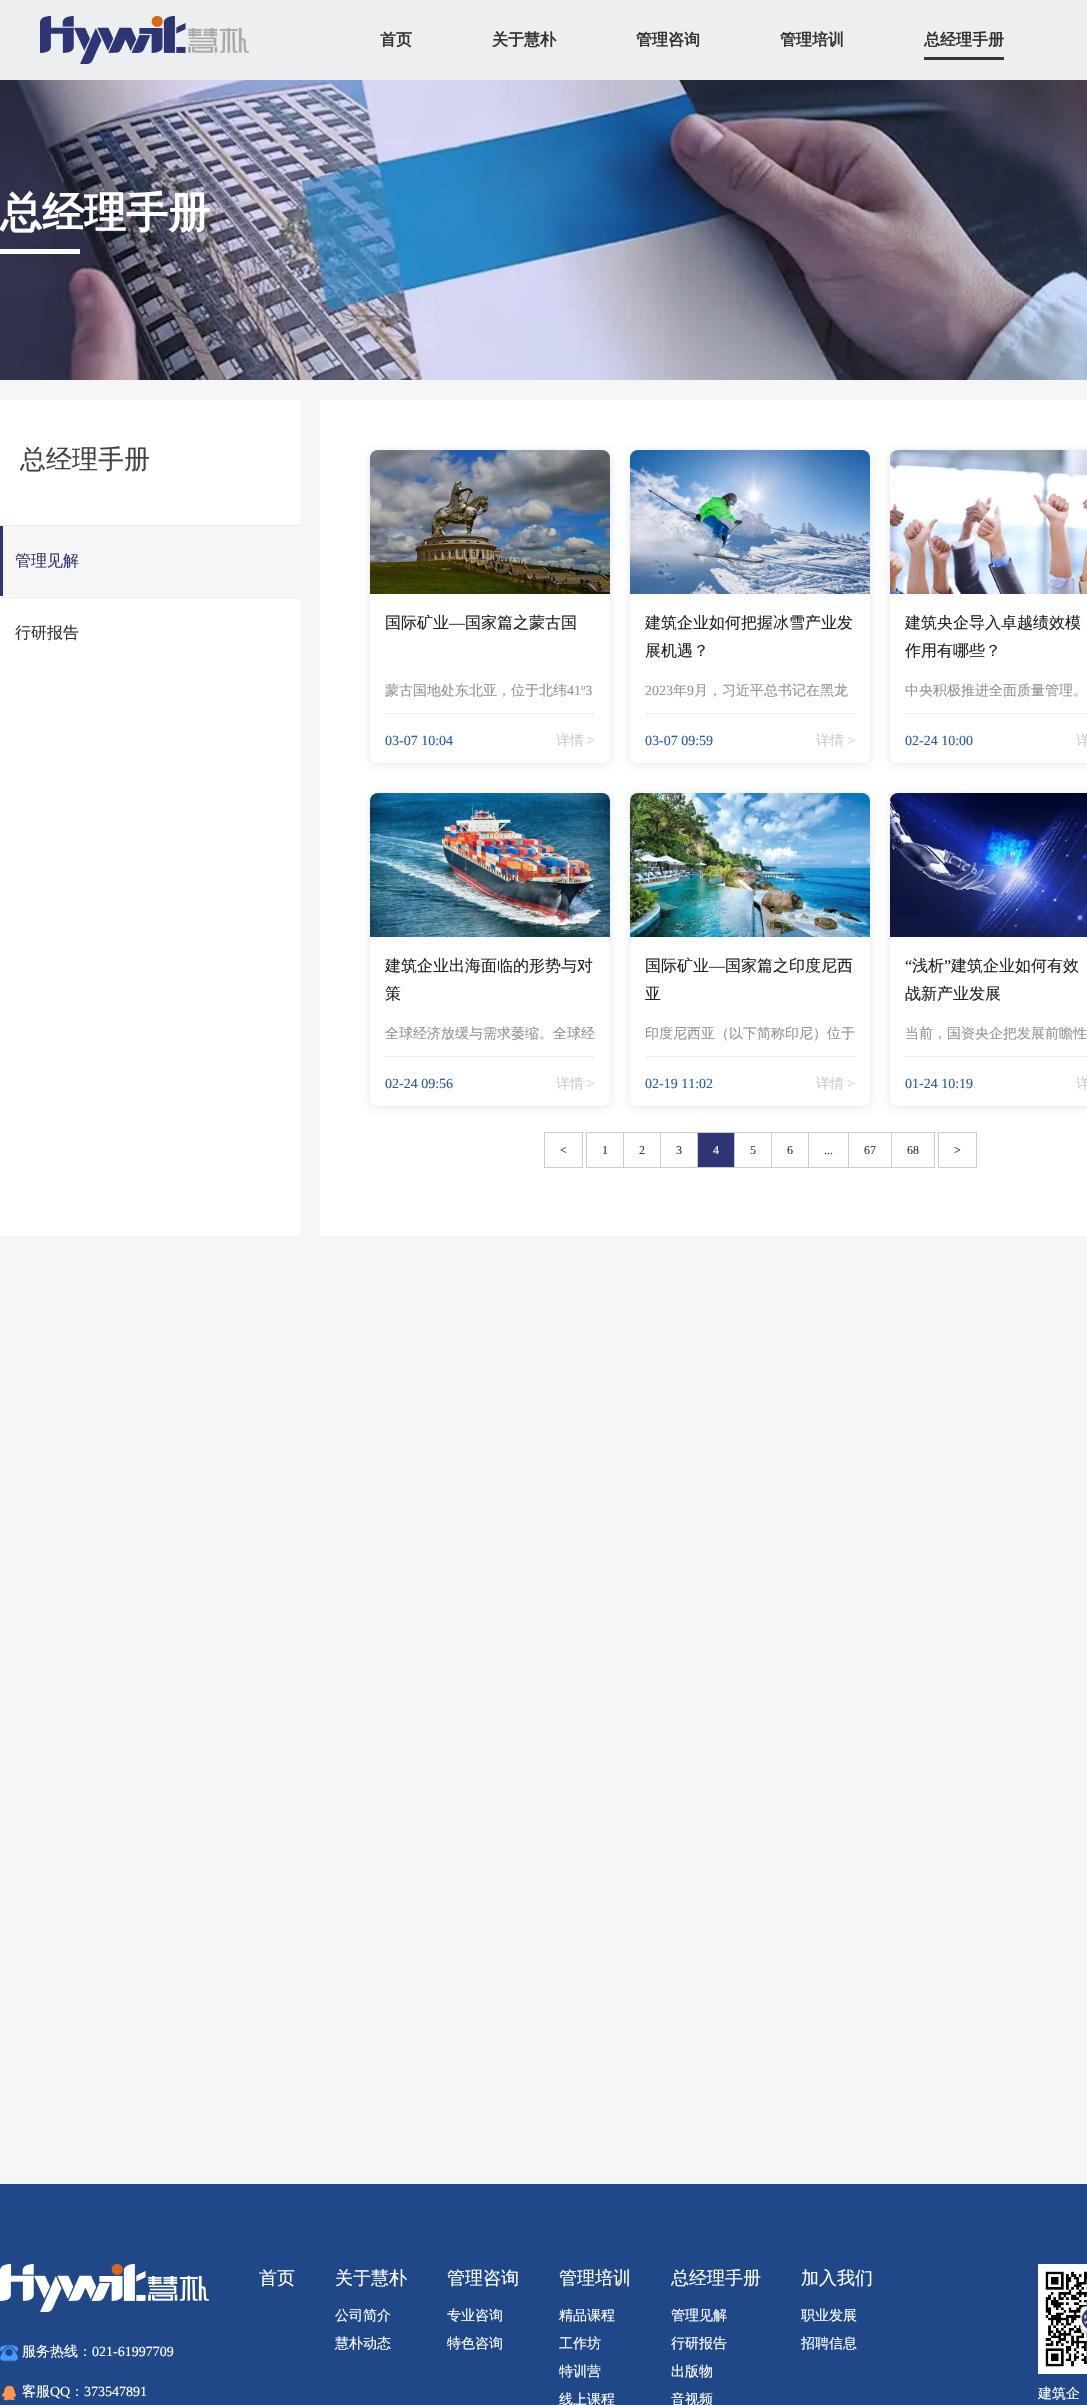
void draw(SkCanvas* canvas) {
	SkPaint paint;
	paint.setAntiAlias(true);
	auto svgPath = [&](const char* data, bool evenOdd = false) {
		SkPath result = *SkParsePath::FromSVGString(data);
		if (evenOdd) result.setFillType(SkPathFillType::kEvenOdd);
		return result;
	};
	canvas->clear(0xfff6f6f6);
	paint.setColor(0xffedeef0);
	canvas->drawRect(SkRect::MakeXYWH(0, 0, 1087, 80), paint);
	canvas->drawImageRect(SkImages::DeferredFromEncodedData(SkData::MakeFromFileName("img1.png")), SkRect::MakeXYWH(40, 16, 209, 48), SkSamplingOptions());
	SkFont f1(fontMgr->matchFamilyStyle("WenQuanYi Zen Hei", SkFontStyle::Bold()), 16);
	f1.setSubpixel(true);
	paint.setColor(0xff333333);
	canvas->drawString("首页", 380, 45, f1, paint);
	canvas->drawString("关于慧朴", 492, 45, f1, paint);
	canvas->drawString("管理咨询", 636, 45, f1, paint);
	canvas->drawString("管理培训", 780, 45, f1, paint);
	canvas->drawString("总经理手册", 924, 45, f1, paint);
	paint.setColor(0xff363637);
	canvas->drawRect(SkRect::MakeXYWH(924, 57, 80, 3), paint);
	canvas->drawImageRect(SkImages::DeferredFromEncodedData(SkData::MakeFromFileName("img2.png")), SkRect::MakeXYWH(0, 80, 1087, 300), SkSamplingOptions());
	SkFont f2(fontMgr->matchFamilyStyle("WenQuanYi Zen Hei", SkFontStyle::Bold()), 42);
	f2.setSubpixel(true);
	paint.setColor(0xffffffff);
	canvas->drawString("总经理手册", 0, 227, f2, paint);
	canvas->drawRect(SkRect::MakeXYWH(0, 249, 80, 5), paint);
	canvas->drawRect(SkRect::MakeXYWH(0, 400, 300, 836), paint);
	SkFont f3(fontMgr->matchFamilyStyle("WenQuanYi Zen Hei", SkFontStyle(500, SkFontStyle::kNormal_Width, SkFontStyle::kUpright_Slant)), 26);
	f3.setSubpixel(true);
	paint.setColor(0xff414141);
	canvas->drawString("总经理手册", 20, 468, f3, paint);
	paint.setColor(0xfff6f6f6);
	canvas->drawRect(SkRect::MakeXYWH(3, 526, 297, 70), paint);
	paint.setColor(0xffececec);
	canvas->drawRect(SkRect::MakeXYWH(0, 525, 301, 1), paint);
	paint.setColor(0xff2e3574);
	canvas->drawRect(SkRect::MakeXYWH(0, 526, 3, 70), paint);
	SkFont f4(fontMgr->matchFamilyStyle("WenQuanYi Zen Hei", SkFontStyle(500, SkFontStyle::kNormal_Width, SkFontStyle::kUpright_Slant)), 16);
	f4.setSubpixel(true);
	canvas->drawString("管理见解", 15, 566, f4, paint);
	paint.setColor(0xffececec);
	canvas->drawRect(SkRect::MakeXYWH(0, 597, 301, 1), paint);
	paint.setColor(0xff333333);
	canvas->drawString("行研报告", 15, 638, f4, paint);
	paint.setColor(0xffffffff);
	canvas->drawRect(SkRect::MakeXYWH(320, 400, 767, 836), paint);
	canvas->save();
	canvas->clipPath(svgPath("M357 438H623V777H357ZM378 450H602C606.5 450 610 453.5 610 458V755C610 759.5 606.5 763 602 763H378C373.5 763 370 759.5 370 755V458C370 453.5 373.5 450 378 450Z", true), true);
	paint.setColor(0x1a000000);
	paint.setMaskFilter(SkMaskFilter::MakeBlur(kNormal_SkBlurStyle, 4));
	canvas->drawRoundRect(SkRect::MakeXYWH(370, 451, 240, 313), 8, 8, paint);
	paint.setMaskFilter(nullptr);
	canvas->restore();
	canvas->drawImageRect(SkImages::DeferredFromEncodedData(SkData::MakeFromFileName("img3.png")), SkRect::MakeXYWH(370, 450, 240, 144), SkSamplingOptions());
	paint.setColor(0xff222222);
	canvas->drawString("国际矿业", 385, 628, f4, paint);
	SkFont f5(fontMgr->matchFamilyStyle("Liberation Serif", SkFontStyle::Normal()), 16);
	f5.setSubpixel(true);
	canvas->drawString("—", 449, 628, f5, paint);
	canvas->drawString("国家篇之蒙古国", 465, 628, f4, paint);
	SkFont f6(fontMgr->matchFamilyStyle("WenQuanYi Zen Hei", SkFontStyle(500, SkFontStyle::kNormal_Width, SkFontStyle::kUpright_Slant)), 14);
	f6.setSubpixel(true);
	paint.setColor(0xff939393);
	canvas->drawString("蒙古国地处东北亚，位于北纬", 385, 695, f6, paint);
	SkFont f7(fontMgr->matchFamilyStyle("Liberation Serif", SkFontStyle::Normal()), 14);
	f7.setSubpixel(true);
	canvas->drawString("41º3", 567, 695, f7, paint);
	paint.setColor(0xffececec);
	canvas->drawRect(SkRect::MakeXYWH(385, 713, 210, 1), paint);
	paint.setColor(0xff295aa9);
	canvas->drawString("03-07 10:04", 385, 745, f7, paint);
	paint.setColor(0xffcccccc);
	canvas->drawString("详情", 556, 745, f6, paint);
	canvas->drawString(">", 587, 745, f7, paint);
	canvas->save();
	canvas->clipPath(svgPath("M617 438H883V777H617ZM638 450H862C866.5 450 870 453.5 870 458V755C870 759.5 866.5 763 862 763H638C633.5 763 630 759.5 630 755V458C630 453.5 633.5 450 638 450Z", true), true);
	paint.setColor(0x1a000000);
	paint.setMaskFilter(SkMaskFilter::MakeBlur(kNormal_SkBlurStyle, 4));
	canvas->drawRoundRect(SkRect::MakeXYWH(630, 451, 240, 313), 8, 8, paint);
	paint.setMaskFilter(nullptr);
	canvas->restore();
	canvas->drawImageRect(SkImages::DeferredFromEncodedData(SkData::MakeFromFileName("img4.png")), SkRect::MakeXYWH(630, 450, 240, 144), SkSamplingOptions());
	paint.setColor(0xff222222);
	canvas->drawString("建筑企业如何把握冰雪产业发", 645, 628, f4, paint);
	canvas->drawString("展机遇？", 645, 656, f4, paint);
	paint.setColor(0xff939393);
	canvas->drawString("2023", 645, 695, f7, paint);
	canvas->drawString("年", 673, 695, f6, paint);
	canvas->drawString("9", 687, 695, f7, paint);
	canvas->drawString("月，习近平总书记在黑龙", 694, 695, f6, paint);
	paint.setColor(0xffececec);
	canvas->drawRect(SkRect::MakeXYWH(645, 713, 210, 1), paint);
	paint.setColor(0xff295aa9);
	canvas->drawString("03-07 09:59", 645, 745, f7, paint);
	paint.setColor(0xffcccccc);
	canvas->drawString("详情", 816, 745, f6, paint);
	canvas->drawString(">", 847, 745, f7, paint);
	canvas->save();
	canvas->clipPath(svgPath("M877 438H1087V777H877ZM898 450H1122C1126.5 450 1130 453.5 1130 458V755C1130 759.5 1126.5 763 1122 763H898C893.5 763 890 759.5 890 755V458C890 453.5 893.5 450 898 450Z", true), true);
	paint.setColor(0x1a000000);
	paint.setMaskFilter(SkMaskFilter::MakeBlur(kNormal_SkBlurStyle, 4));
	canvas->drawRoundRect(SkRect::MakeXYWH(890, 451, 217, 313), 8, 8, paint);
	paint.setMaskFilter(nullptr);
	canvas->restore();
	canvas->drawImageRect(SkImages::DeferredFromEncodedData(SkData::MakeFromFileName("img5.png")), SkRect::MakeXYWH(890, 450, 197, 144), SkSamplingOptions());
	paint.setColor(0xff222222);
	canvas->drawString("建筑央企导入卓越绩效模", 905, 628, f4, paint);
	canvas->drawString("作用有哪些？", 905, 656, f4, paint);
	paint.setColor(0xff939393);
	canvas->drawString("中央积极推进全面质量管理。", 905, 695, f6, paint);
	paint.setColor(0xffececec);
	canvas->drawRect(SkRect::MakeXYWH(905, 713, 182, 1), paint);
	paint.setColor(0xff295aa9);
	canvas->drawString("02-24 10:00", 905, 745, f7, paint);
	paint.setColor(0xffcccccc);
	canvas->drawString("详", 1076, 745, f6, paint);
	canvas->save();
	canvas->clipPath(svgPath("M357 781H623V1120H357ZM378 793H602C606.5 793 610 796.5 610 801V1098C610 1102.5 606.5 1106 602 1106H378C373.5 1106 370 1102.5 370 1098V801C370 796.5 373.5 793 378 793Z", true), true);
	paint.setColor(0x1a000000);
	paint.setMaskFilter(SkMaskFilter::MakeBlur(kNormal_SkBlurStyle, 4));
	canvas->drawRoundRect(SkRect::MakeXYWH(370, 794, 240, 313), 8, 8, paint);
	paint.setMaskFilter(nullptr);
	canvas->restore();
	canvas->drawImageRect(SkImages::DeferredFromEncodedData(SkData::MakeFromFileName("img6.png")), SkRect::MakeXYWH(370, 793, 240, 144), SkSamplingOptions());
	paint.setColor(0xff222222);
	canvas->drawString("建筑企业出海面临的形势与对", 385, 971, f4, paint);
	canvas->drawString("策", 385, 999, f4, paint);
	paint.setColor(0xff939393);
	canvas->drawString("全球经济放缓与需求萎缩。全球经", 385, 1038, f6, paint);
	paint.setColor(0xffececec);
	canvas->drawRect(SkRect::MakeXYWH(385, 1056, 210, 1), paint);
	paint.setColor(0xff295aa9);
	canvas->drawString("02-24 09:56", 385, 1088, f7, paint);
	paint.setColor(0xffcccccc);
	canvas->drawString("详情", 556, 1088, f6, paint);
	canvas->drawString(">", 587, 1088, f7, paint);
	canvas->save();
	canvas->clipPath(svgPath("M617 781H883V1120H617ZM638 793H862C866.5 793 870 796.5 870 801V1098C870 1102.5 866.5 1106 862 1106H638C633.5 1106 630 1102.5 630 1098V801C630 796.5 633.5 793 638 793Z", true), true);
	paint.setColor(0x1a000000);
	paint.setMaskFilter(SkMaskFilter::MakeBlur(kNormal_SkBlurStyle, 4));
	canvas->drawRoundRect(SkRect::MakeXYWH(630, 794, 240, 313), 8, 8, paint);
	paint.setMaskFilter(nullptr);
	canvas->restore();
	canvas->drawImageRect(SkImages::DeferredFromEncodedData(SkData::MakeFromFileName("img7.png")), SkRect::MakeXYWH(630, 793, 240, 144), SkSamplingOptions());
	paint.setColor(0xff222222);
	canvas->drawString("国际矿业", 645, 971, f4, paint);
	canvas->drawString("—", 709, 971, f5, paint);
	canvas->drawString("国家篇之印度尼西", 725, 971, f4, paint);
	canvas->drawString("亚", 645, 999, f4, paint);
	paint.setColor(0xff939393);
	canvas->drawString("印度尼西亚（以下简称印尼）位于", 645, 1038, f6, paint);
	paint.setColor(0xffececec);
	canvas->drawRect(SkRect::MakeXYWH(645, 1056, 210, 1), paint);
	paint.setColor(0xff295aa9);
	canvas->drawString("02-19 11:02", 645, 1088, f7, paint);
	paint.setColor(0xffcccccc);
	canvas->drawString("详情", 816, 1088, f6, paint);
	canvas->drawString(">", 847, 1088, f7, paint);
	canvas->save();
	canvas->clipPath(svgPath("M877 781H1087V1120H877ZM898 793H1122C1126.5 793 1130 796.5 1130 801V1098C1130 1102.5 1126.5 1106 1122 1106H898C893.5 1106 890 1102.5 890 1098V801C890 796.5 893.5 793 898 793Z", true), true);
	paint.setColor(0x1a000000);
	paint.setMaskFilter(SkMaskFilter::MakeBlur(kNormal_SkBlurStyle, 4));
	canvas->drawRoundRect(SkRect::MakeXYWH(890, 794, 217, 313), 8, 8, paint);
	paint.setMaskFilter(nullptr);
	canvas->restore();
	canvas->drawImageRect(SkImages::DeferredFromEncodedData(SkData::MakeFromFileName("img8.png")), SkRect::MakeXYWH(890, 793, 197, 144), SkSamplingOptions());
	paint.setColor(0xff222222);
	canvas->drawString("“", 905, 971, f5, paint);
	canvas->drawString("浅析", 912, 971, f4, paint);
	canvas->drawString("”", 944, 971, f5, paint);
	canvas->drawString("建筑企业如何有效", 951, 971, f4, paint);
	canvas->drawString("战新产业发展", 905, 999, f4, paint);
	paint.setColor(0xff939393);
	canvas->drawString("当前，国资央企把发展前瞻性", 905, 1038, f6, paint);
	paint.setColor(0xffececec);
	canvas->drawRect(SkRect::MakeXYWH(905, 1056, 182, 1), paint);
	paint.setColor(0xff295aa9);
	canvas->drawString("01-24 10:19", 905, 1088, f7, paint);
	paint.setColor(0xffcccccc);
	canvas->drawString("详", 1076, 1088, f6, paint);
	paint.setStroke(true);
	paint.setStrokeWidth(1);
	canvas->drawRect(SkRect::MakeXYWH(544.5, 1132.5, 38, 35), paint);
	SkFont f8(fontMgr->matchFamilyStyle("Liberation Serif", SkFontStyle::Normal()), 12);
	f8.setSubpixel(true);
	paint.setStroke(false);
	paint.setColor(0xff333333);
	canvas->drawString("<", 560, 1154, f8, paint);
	paint.setStroke(true);
	paint.setColor(0xffcccccc);
	canvas->drawRect(SkRect::MakeXYWH(586.5, 1132.5, 37, 35), paint);
	paint.setStroke(false);
	paint.setColor(0xff333333);
	canvas->drawString("1", 602, 1154, f8, paint);
	paint.setStroke(true);
	paint.setColor(0xffcccccc);
	canvas->drawRect(SkRect::MakeXYWH(623.5, 1132.5, 37, 35), paint);
	paint.setStroke(false);
	paint.setColor(0xff333333);
	canvas->drawString("2", 639, 1154, f8, paint);
	paint.setStroke(true);
	paint.setColor(0xffcccccc);
	canvas->drawRect(SkRect::MakeXYWH(660.5, 1132.5, 37, 35), paint);
	paint.setStroke(false);
	paint.setColor(0xff333333);
	canvas->drawString("3", 676, 1154, f8, paint);
	paint.setColor(0xff2e3574);
	canvas->drawRect(SkRect::MakeXYWH(697.5, 1132.5, 37, 35), paint);
	paint.setStroke(true);
	paint.setColor(0xffcccccc);
	canvas->drawRect(SkRect::MakeXYWH(697.5, 1132.5, 37, 35), paint);
	paint.setStroke(false);
	paint.setColor(0xffffffff);
	canvas->drawString("4", 713, 1154, f8, paint);
	paint.setStroke(true);
	paint.setColor(0xffcccccc);
	canvas->drawRect(SkRect::MakeXYWH(734.5, 1132.5, 37, 35), paint);
	paint.setStroke(false);
	paint.setColor(0xff333333);
	canvas->drawString("5", 750, 1154, f8, paint);
	paint.setStroke(true);
	paint.setColor(0xffcccccc);
	canvas->drawRect(SkRect::MakeXYWH(771.5, 1132.5, 37, 35), paint);
	paint.setStroke(false);
	paint.setColor(0xff333333);
	canvas->drawString("6", 787, 1154, f8, paint);
	paint.setStroke(true);
	paint.setColor(0xffcccccc);
	canvas->drawRect(SkRect::MakeXYWH(808.5, 1132.5, 40, 35), paint);
	canvas->drawRect(SkRect::MakeXYWH(848.5, 1132.5, 43, 35), paint);
	paint.setStroke(false);
	paint.setColor(0xff333333);
	canvas->drawString("67", 864, 1154, f8, paint);
	paint.setStroke(true);
	paint.setColor(0xffcccccc);
	canvas->drawRect(SkRect::MakeXYWH(891.5, 1132.5, 43, 35), paint);
	paint.setStroke(false);
	paint.setColor(0xff333333);
	canvas->drawString("68", 907, 1154, f8, paint);
	paint.setStroke(true);
	paint.setColor(0xffcccccc);
	canvas->drawRect(SkRect::MakeXYWH(938.5, 1132.5, 38, 35), paint);
	paint.setStroke(false);
	paint.setColor(0xff333333);
	canvas->drawString(">", 954, 1154, f8, paint);
	canvas->drawString("...", 824, 1154, f8, paint);
	paint.setColor(0xff204888);
	canvas->drawRect(SkRect::MakeXYWH(0, 2184, 1087, 221), paint);
	canvas->drawImageRect(SkImages::DeferredFromEncodedData(SkData::MakeFromFileName("img9.png")), SkRect::MakeXYWH(0, 2264, 209, 48), SkSamplingOptions());
	canvas->drawImageRect(SkImages::DeferredFromEncodedData(SkData::MakeFromFileName("img10.png")), SkRect::MakeXYWH(0, 2344, 18, 18), SkSamplingOptions());
	paint.setColor(0xffffffff);
	canvas->drawString("服务热线：", 22, 2356, f6, paint);
	canvas->drawString("021-61997709", 92, 2356, f7, paint);
	canvas->drawImageRect(SkImages::DeferredFromEncodedData(SkData::MakeFromFileName("img11.png")), SkRect::MakeXYWH(2, 2385, 14, 16), SkSamplingOptions());
	canvas->drawString("客服", 22, 2396, f6, paint);
	canvas->drawString("QQ", 50, 2396, f7, paint);
	canvas->drawString("：", 70, 2396, f6, paint);
	canvas->drawString("373547891", 84, 2396, f7, paint);
	SkFont f9(fontMgr->matchFamilyStyle("WenQuanYi Zen Hei", SkFontStyle(500, SkFontStyle::kNormal_Width, SkFontStyle::kUpright_Slant)), 18);
	f9.setSubpixel(true);
	canvas->drawString("首页", 259, 2284, f9, paint);
	canvas->drawString("关于慧朴", 335, 2284, f9, paint);
	canvas->drawString("公司简介", 335, 2320, f6, paint);
	canvas->drawString("慧朴动态", 335, 2348, f6, paint);
	canvas->drawString("管理咨询", 447, 2284, f9, paint);
	canvas->drawString("专业咨询", 447, 2320, f6, paint);
	canvas->drawString("特色咨询", 447, 2348, f6, paint);
	canvas->drawString("管理培训", 559, 2284, f9, paint);
	canvas->drawString("精品课程", 559, 2320, f6, paint);
	canvas->drawString("工作坊", 559, 2348, f6, paint);
	canvas->drawString("特训营", 559, 2376, f6, paint);
	canvas->drawString("线上课程", 559, 2404, f6, paint);
	canvas->drawString("总经理手册", 671, 2284, f9, paint);
	canvas->drawString("管理见解", 671, 2320, f6, paint);
	canvas->drawString("行研报告", 671, 2348, f6, paint);
	canvas->drawString("出版物", 671, 2376, f6, paint);
	canvas->drawString("音视频", 671, 2404, f6, paint);
	canvas->drawString("加入我们", 801, 2284, f9, paint);
	canvas->drawString("职业发展", 801, 2320, f6, paint);
	canvas->drawString("招聘信息", 801, 2348, f6, paint);
	canvas->drawImageRect(SkImages::DeferredFromEncodedData(SkData::MakeFromFileName("img12.png")), SkRect::MakeXYWH(1038, 2264, 49, 110), SkSamplingOptions());
	canvas->drawString("建筑企", 1038, 2398, f6, paint);
}
